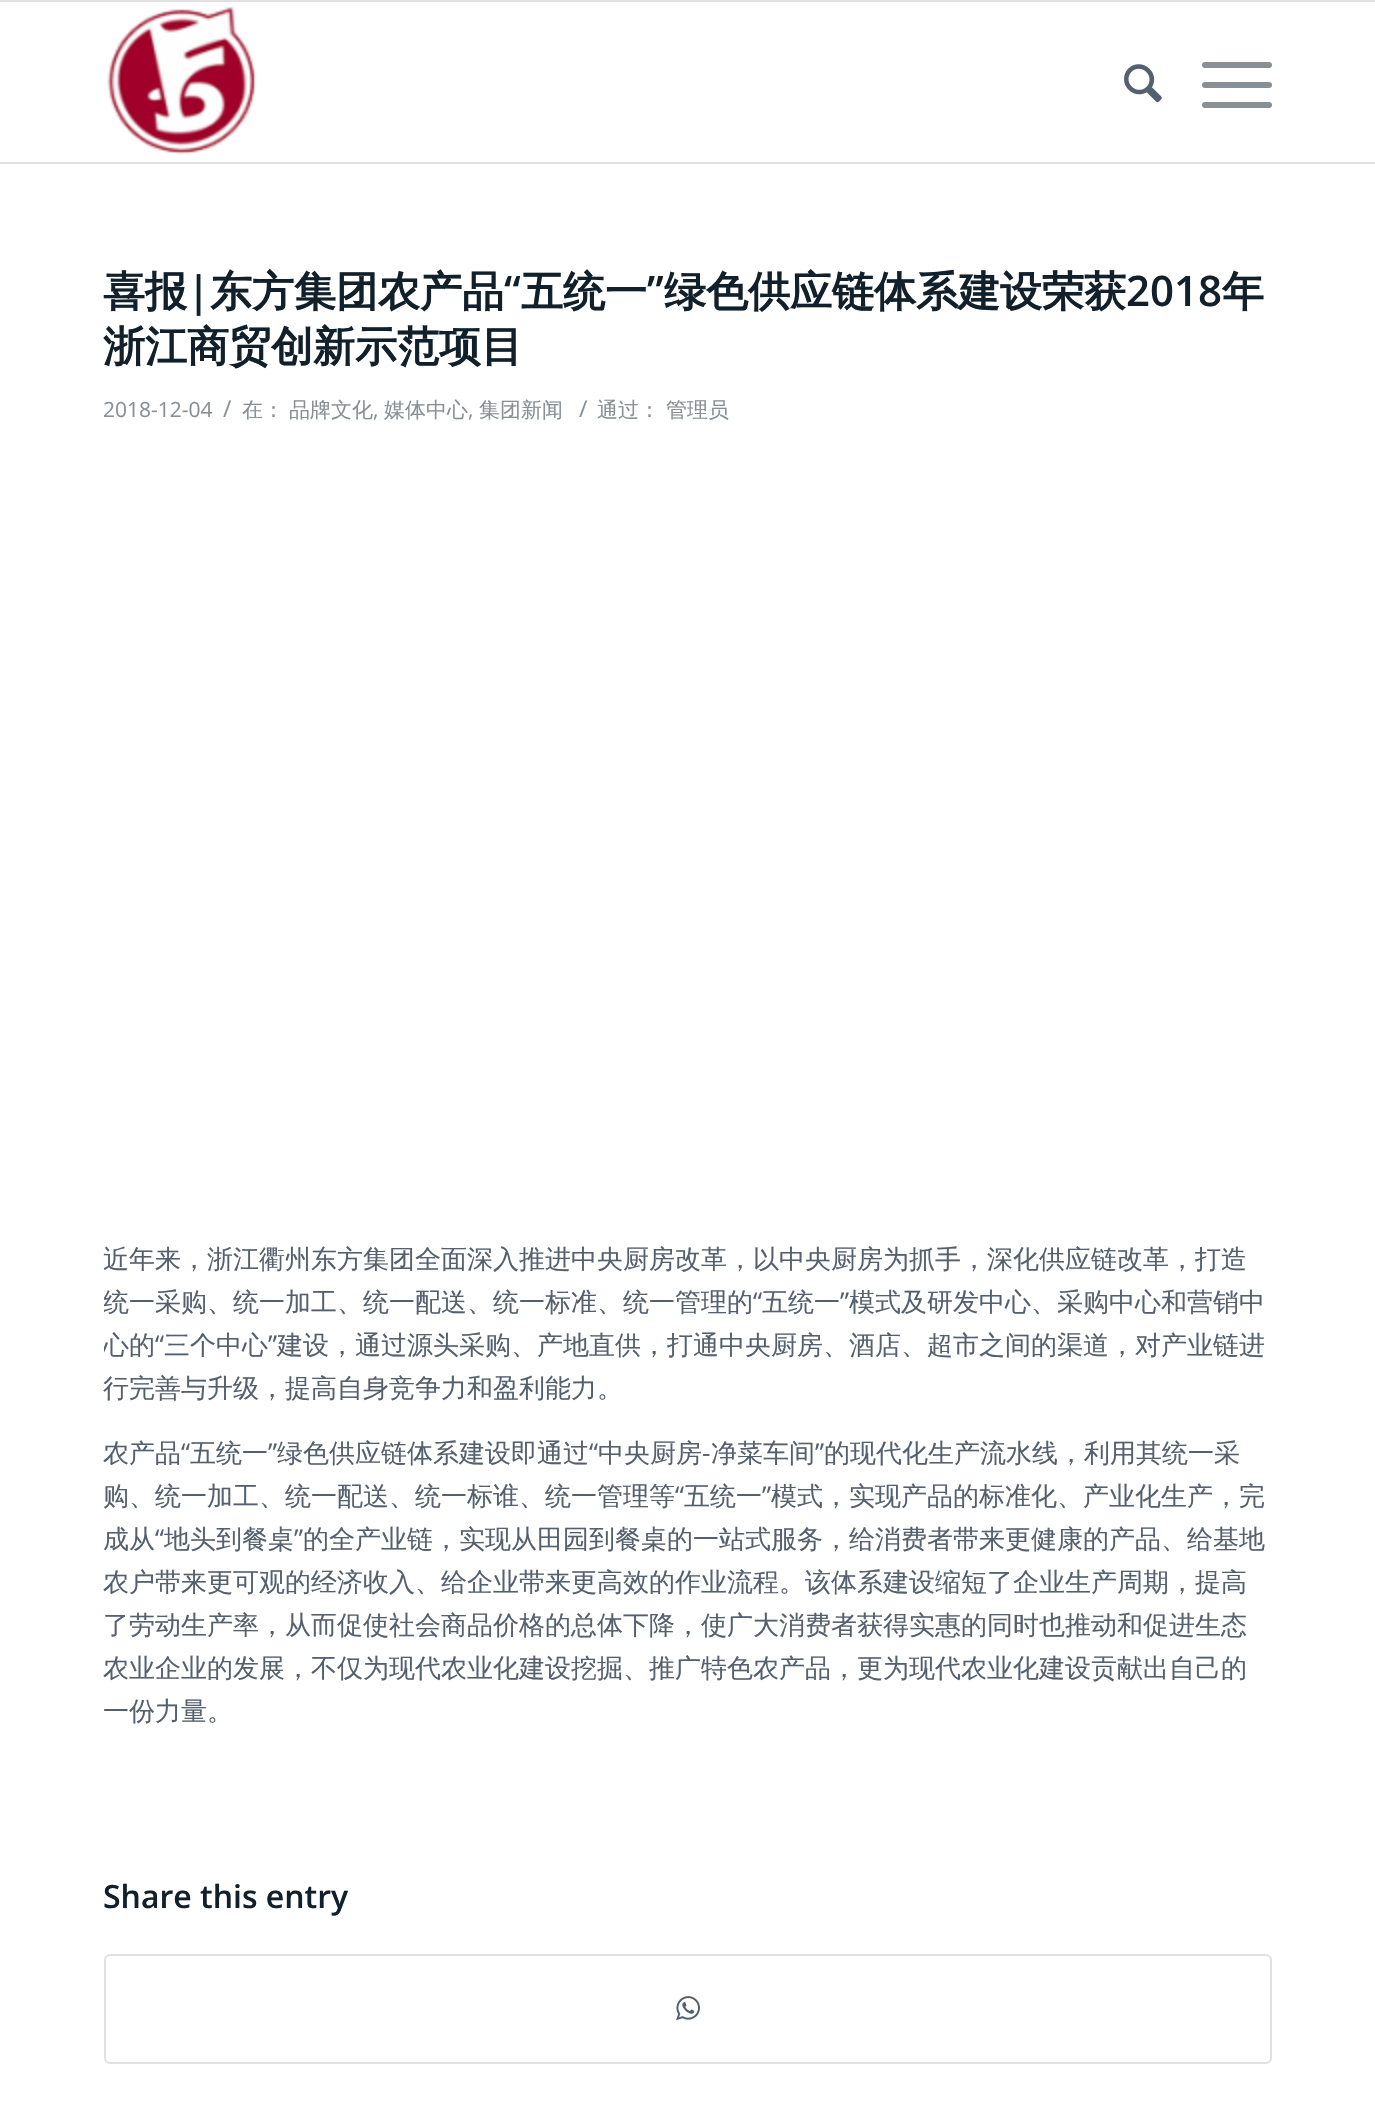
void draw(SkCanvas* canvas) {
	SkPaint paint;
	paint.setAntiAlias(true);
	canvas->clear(0xffffffff);
	paint.setColor(0xffe1e1e1);
	canvas->drawRect(SkRect::MakeXYWH(0, 0, 1375, 2), paint);
	canvas->drawRect(SkRect::MakeXYWH(0, 162, 1375, 2), paint);
	canvas->drawImageRect(SkImages::DeferredFromEncodedData(SkData::MakeFromFileName("img1.png")), SkRect::MakeXYWH(107, 5, 149, 150), SkSamplingOptions());
	canvas->drawImageRect(SkImages::DeferredFromEncodedData(SkData::MakeFromFileName("img2.png")), SkRect::MakeXYWH(1124, 64, 38, 39), SkSamplingOptions());
	paint.setColor(0xff889095);
	canvas->drawRoundRect(SkRect::MakeXYWH(1202, 82, 70, 6), 3, 3, paint);
	canvas->drawRoundRect(SkRect::MakeXYWH(1202, 62, 70, 6), 3, 3, paint);
	canvas->drawRoundRect(SkRect::MakeXYWH(1202, 102, 70, 6), 3, 3, paint);
	SkFont f1(fontMgr->matchFamilyStyle("WenQuanYi Zen Hei", SkFontStyle::Bold()), 42);
	f1.setSubpixel(true);
	paint.setColor(0xff11202a);
	canvas->drawString("喜报", 103, 306, f1, paint);
	SkFont f2(fontMgr->matchFamilyStyle("Open Sans", SkFontStyle(600, SkFontStyle::kNormal_Width, SkFontStyle::kUpright_Slant)), 42);
	f2.setSubpixel(true);
	canvas->drawString("|", 187, 306, f2, paint);
	canvas->drawString("东方集团农产品", 210, 306, f1, paint);
	canvas->drawString("“", 504, 306, f2, paint);
	canvas->drawString("五统一", 521, 306, f1, paint);
	canvas->drawString("”", 647, 306, f2, paint);
	canvas->drawString("绿色供应链体系建设荣获", 664, 306, f1, paint);
	canvas->drawString("2018", 1126, 306, f2, paint);
	canvas->drawString("年", 1222, 306, f1, paint);
	canvas->drawString("浙江商贸创新示范项目", 103, 361, f1, paint);
	SkFont f3(fontMgr->matchFamilyStyle("Open Sans", SkFontStyle::Normal()), 21);
	f3.setSubpixel(true);
	paint.setColor(0xff889095);
	canvas->drawString("2018-12-04", 103, 417, f3, paint);
	SkFont f4(fontMgr->matchFamilyStyle("Open Sans", SkFontStyle::Normal()), 23);
	f4.setSubpixel(true);
	canvas->drawString("/", 223, 417, f4, paint);
	SkFont f5(fontMgr->matchFamilyStyle("WenQuanYi Zen Hei", SkFontStyle(500, SkFontStyle::kNormal_Width, SkFontStyle::kUpright_Slant)), 21);
	f5.setSubpixel(true);
	canvas->drawString("在：", 242, 417, f5, paint);
	canvas->drawString("品牌文化", 289, 417, f5, paint);
	canvas->drawString(",", 373, 417, f3, paint);
	canvas->drawString("媒体中心", 384, 417, f5, paint);
	canvas->drawString(",", 468, 417, f3, paint);
	canvas->drawString("集团新闻", 479, 417, f5, paint);
	canvas->drawString("/", 579, 417, f4, paint);
	canvas->drawString("通过：", 597, 417, f5, paint);
	canvas->drawString("管理员", 666, 417, f5, paint);
	SkFont f6(fontMgr->matchFamilyStyle("WenQuanYi Zen Hei", SkFontStyle(500, SkFontStyle::kNormal_Width, SkFontStyle::kUpright_Slant)), 26);
	f6.setSubpixel(true);
	paint.setColor(0xff55606e);
	canvas->drawString("近年来，浙江衢州东方集团全面深入推进中央厨房改革，以中央厨房为抓手，深化供应链改革，打造", 103, 1268, f6, paint);
	canvas->save();
	canvas->clipRect(SkRect::MakeXYWH(104, 264, 1168, 1820));
	canvas->drawString("统一采购、统一加工、统一配送、统一标准、统一管理的", 103, 1311, f6, paint);
	canvas->restore();
	SkFont f7(fontMgr->matchFamilyStyle("Open Sans", SkFontStyle::Normal()), 26);
	f7.setSubpixel(true);
	canvas->drawString("“", 753, 1311, f7, paint);
	canvas->drawString("五统一", 762, 1311, f6, paint);
	canvas->drawString("”", 840, 1311, f7, paint);
	canvas->drawString("模式及研发中心、采购中心和营销中", 849, 1311, f6, paint);
	canvas->save();
	canvas->clipRect(SkRect::MakeXYWH(104, 264, 1168, 1820));
	canvas->drawString("心的", 103, 1354, f6, paint);
	canvas->restore();
	canvas->drawString("“", 155, 1354, f7, paint);
	canvas->drawString("三个中心", 164, 1354, f6, paint);
	canvas->drawString("”", 268, 1354, f7, paint);
	canvas->drawString("建设，通过源头采购、产地直供，打通中央厨房、酒店、超市之间的渠道，对产业链进", 277, 1354, f6, paint);
	canvas->drawString("行完善与升级，提高自身竞争力和盈利能力。", 103, 1397, f6, paint);
	canvas->drawString("农产品", 103, 1462, f6, paint);
	canvas->drawString("“", 181, 1462, f7, paint);
	canvas->drawString("五统一", 190, 1462, f6, paint);
	canvas->drawString("”", 268, 1462, f7, paint);
	canvas->drawString("绿色供应链体系建设即通过", 277, 1462, f6, paint);
	canvas->drawString("“", 589, 1462, f7, paint);
	canvas->drawString("中央厨房", 598, 1462, f6, paint);
	canvas->drawString("净菜车间", 711, 1462, f6, paint);
	canvas->drawString("”", 815, 1462, f7, paint);
	canvas->drawString("的现代化生产流水线，利用其统一采", 824, 1462, f6, paint);
	canvas->drawString("-", 702, 1462, f7, paint);
	canvas->drawString("购、统一加工、统一配送、统一标谁、统一管理等", 103, 1505, f6, paint);
	canvas->drawString("“", 675, 1505, f7, paint);
	canvas->drawString("五统一", 684, 1505, f6, paint);
	canvas->drawString("”", 762, 1505, f7, paint);
	canvas->drawString("模式，实现产品的标准化、产业化生产，完", 771, 1505, f6, paint);
	canvas->drawString("成从", 103, 1548, f6, paint);
	canvas->drawString("“", 155, 1548, f7, paint);
	canvas->drawString("地头到餐桌", 164, 1548, f6, paint);
	canvas->drawString("”", 294, 1548, f7, paint);
	canvas->drawString("的全产业链，实现从田园到餐桌的一站式服务，给消费者带来更健康的产品、给基地", 303, 1548, f6, paint);
	canvas->drawString("农户带来更可观的经济收入、给企业带来更高效的作业流程。该体系建设缩短了企业生产周期，提高", 103, 1591, f6, paint);
	canvas->drawString("了劳动生产率，从而促使社会商品价格的总体下降，使广大消费者获得实惠的同时也推动和促进生态", 103, 1634, f6, paint);
	canvas->drawString("农业企业的发展，不仅为现代农业化建设挖掘、推广特色农产品，更为现代农业化建设贡献出自己的", 103, 1677, f6, paint);
	canvas->drawString("一份力量。", 103, 1720, f6, paint);
	SkFont f8(fontMgr->matchFamilyStyle("Open Sans", SkFontStyle(600, SkFontStyle::kNormal_Width, SkFontStyle::kUpright_Slant)), 32);
	f8.setSubpixel(true);
	paint.setColor(0xff11202a);
	canvas->drawString("Share this entry", 103, 1908, f8, paint);
	paint.setStroke(true);
	paint.setStrokeWidth(2);
	paint.setColor(0xffe1e1e1);
	canvas->drawRoundRect(SkRect::MakeXYWH(105, 1955, 1166, 108), 5, 5, paint);
	canvas->drawImageRect(SkImages::DeferredFromEncodedData(SkData::MakeFromFileName("img3.png")), SkRect::MakeXYWH(676, 1996, 24, 25), SkSamplingOptions());
}
